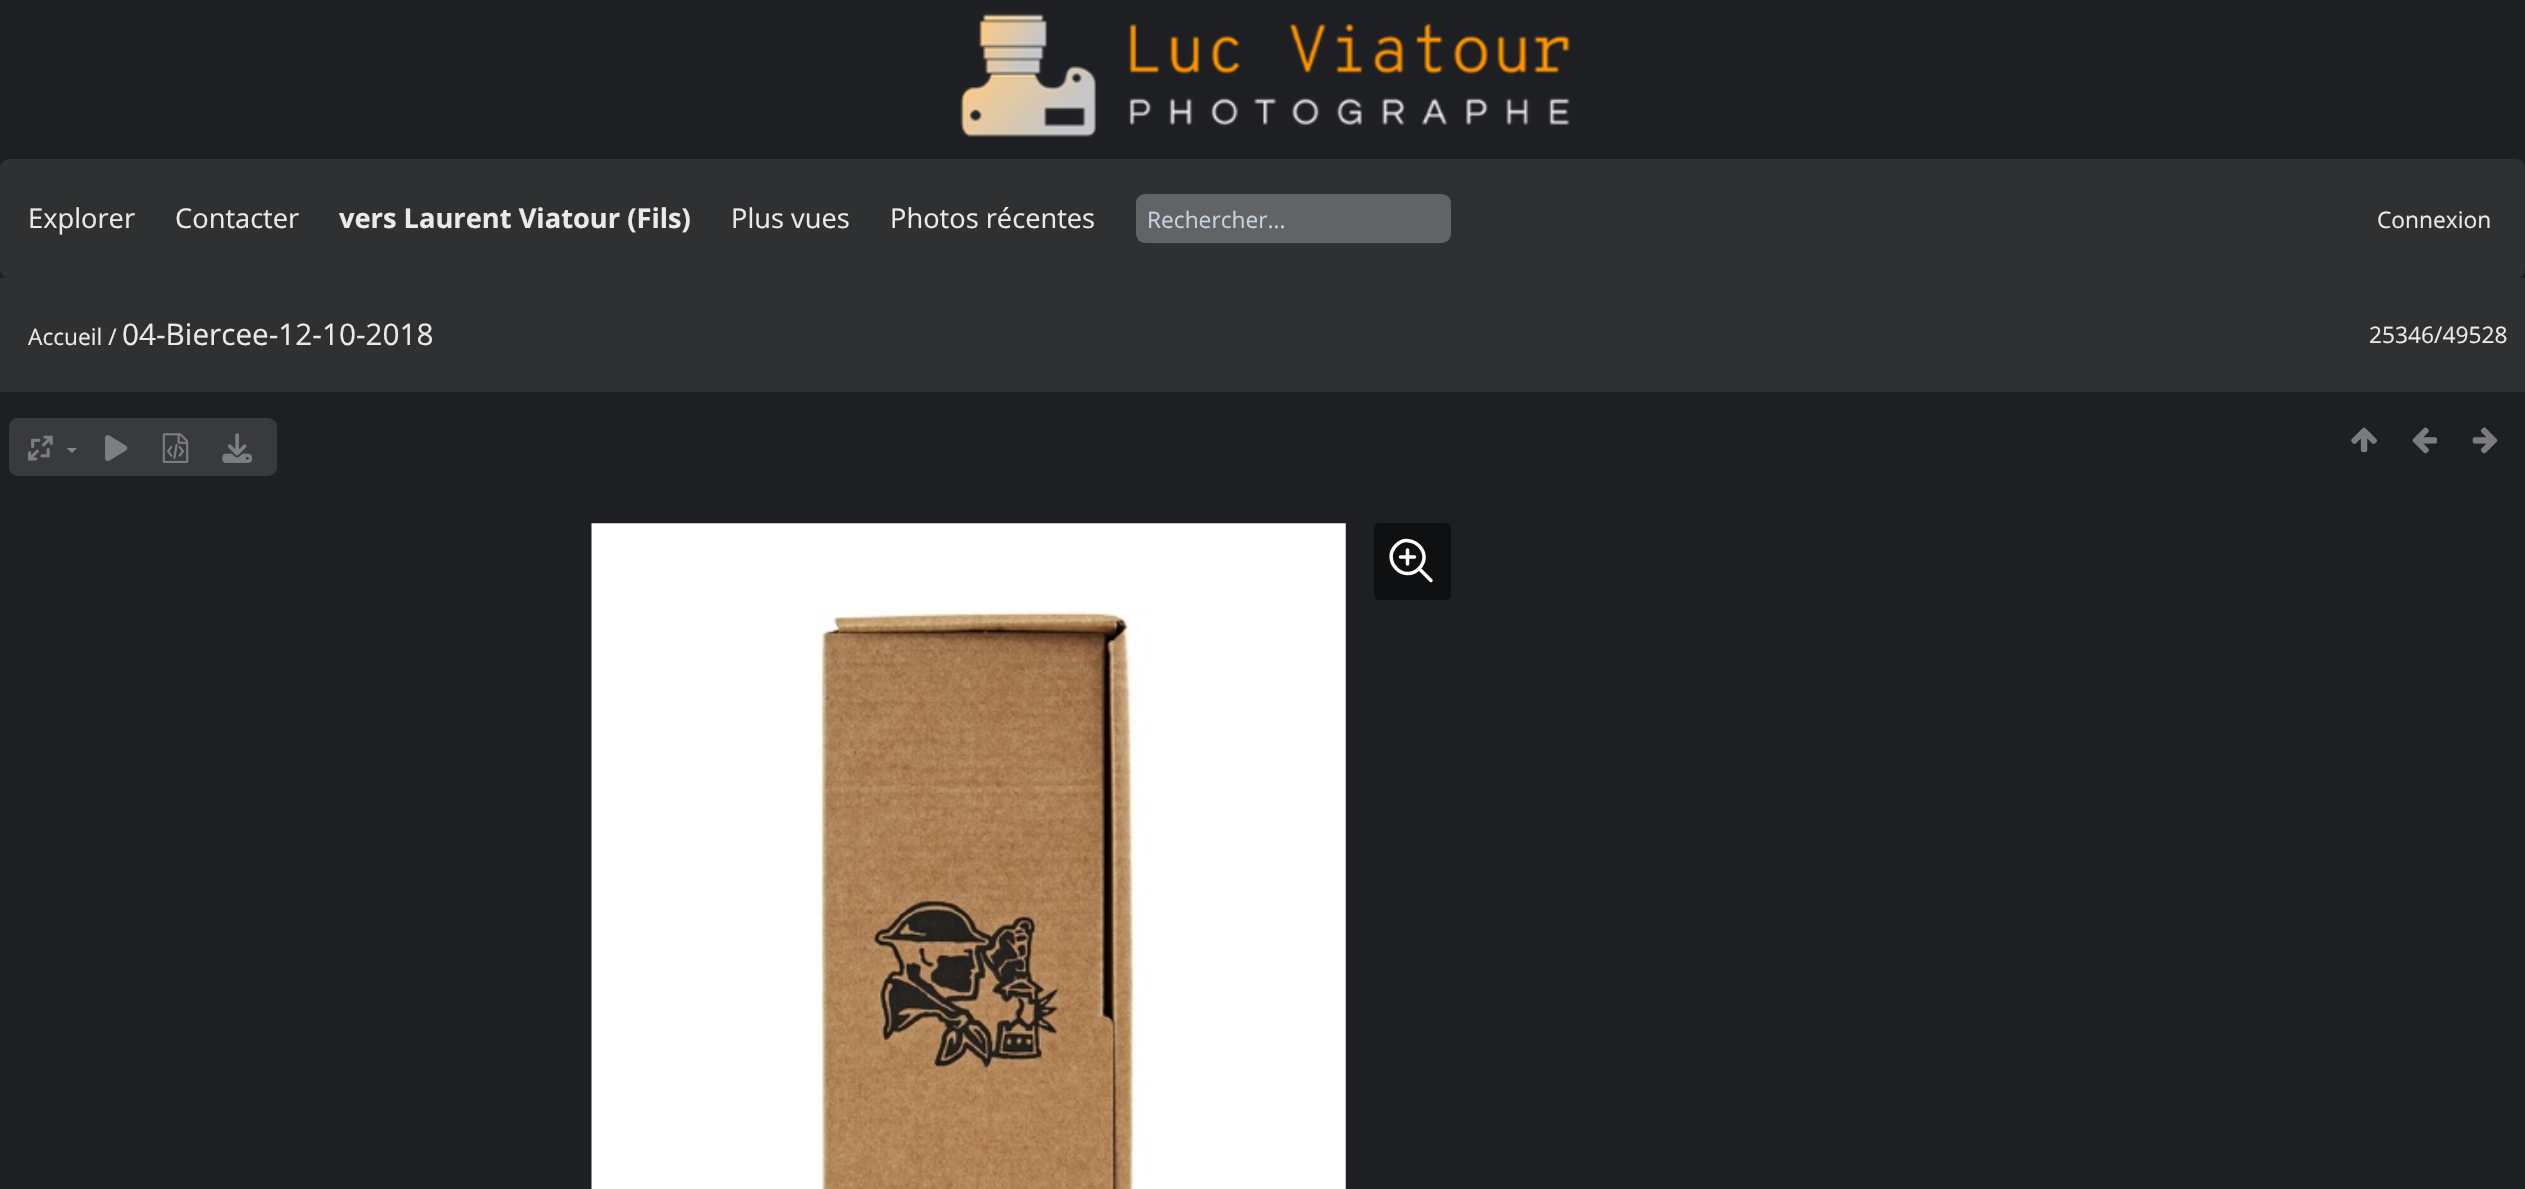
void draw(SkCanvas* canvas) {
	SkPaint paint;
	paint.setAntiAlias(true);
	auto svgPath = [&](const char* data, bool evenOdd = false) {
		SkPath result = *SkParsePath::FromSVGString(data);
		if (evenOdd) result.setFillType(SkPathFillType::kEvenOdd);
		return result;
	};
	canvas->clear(0xff1e1f23);
	canvas->drawImageRect(SkImages::DeferredFromEncodedData(SkData::MakeFromFileName("img1.png")), SkRect::MakeXYWH(960, 11, 611, 126), SkSamplingOptions());
	paint.setColor(0xff2f3032);
	canvas->drawRoundRect(SkRect::MakeXYWH(0, 159, 2525, 119), 9, 9, paint);
	SkFont f1(fontMgr->matchFamilyStyle("Open Sans", SkFontStyle::Normal()), 27.25);
	f1.setSubpixel(true);
	paint.setColor(0xffeaeae9);
	canvas->drawString("Explorer", 28, 228, f1, paint);
	canvas->drawString("Contacter", 175, 228, f1, paint);
	SkFont f2(fontMgr->matchFamilyStyle("Open Sans", SkFontStyle::Bold()), 27.25);
	f2.setSubpixel(true);
	canvas->drawString("vers Laurent Viatour (Fils)", 339, 228, f2, paint);
	canvas->drawString("Plus vues", 731, 228, f1, paint);
	canvas->drawString("Photos récentes", 890, 228, f1, paint);
	paint.setColor(0xff616364);
	canvas->drawRoundRect(SkRect::MakeXYWH(1136, 194, 315, 49), 9, 9, paint);
	SkFont f3(fontMgr->matchFamilyStyle("Open Sans", SkFontStyle::Normal()), 22.75);
	f3.setSubpixel(true);
	paint.setColor(0xffc7d3e1);
	canvas->drawString("Rechercher...", 1147, 228, f3, paint);
	paint.setColor(0xffeaeae9);
	canvas->drawString("Connexion", 2377, 228, f3, paint);
	paint.setColor(0xff2f3032);
	canvas->drawRect(SkRect::MakeXYWH(0, 278, 2525, 114), paint);
	paint.setColor(0xffeaeae9);
	canvas->drawString("Accueil /", 28, 345, f3, paint);
	SkFont f4(fontMgr->matchFamilyStyle("Open Sans", SkFontStyle::Normal()), 29.75);
	f4.setSubpixel(true);
	canvas->drawString("04-Biercee-12-10-2018", 122, 345, f4, paint);
	canvas->drawString("25346/49528", 2369, 343, f3, paint);
	paint.setColor(0xff393a3d);
	canvas->drawRoundRect(SkRect::MakeXYWH(9, 418, 268, 58), 9, 9, paint);
	canvas->drawImageRect(SkImages::DeferredFromEncodedData(SkData::MakeFromFileName("img2.png")), SkRect::MakeXYWH(28, 435, 25, 26), SkSamplingOptions());
	paint.setColor(0xff848588);
	canvas->drawPath(svgPath("M66.5 448H77L72 453Z"), paint);
	canvas->drawImageRect(SkImages::DeferredFromEncodedData(SkData::MakeFromFileName("img3.png")), SkRect::MakeXYWH(105, 435, 23, 27), SkSamplingOptions());
	canvas->drawImageRect(SkImages::DeferredFromEncodedData(SkData::MakeFromFileName("img4.png")), SkRect::MakeXYWH(162, 433, 27, 30), SkSamplingOptions());
	canvas->drawImageRect(SkImages::DeferredFromEncodedData(SkData::MakeFromFileName("img5.png")), SkRect::MakeXYWH(222, 433, 30, 30), SkSamplingOptions());
	canvas->drawImageRect(SkImages::DeferredFromEncodedData(SkData::MakeFromFileName("img6.png")), SkRect::MakeXYWH(2351, 427, 26, 26), SkSamplingOptions());
	canvas->drawImageRect(SkImages::DeferredFromEncodedData(SkData::MakeFromFileName("img7.png")), SkRect::MakeXYWH(2412, 427, 25, 27), SkSamplingOptions());
	canvas->drawImageRect(SkImages::DeferredFromEncodedData(SkData::MakeFromFileName("img8.png")), SkRect::MakeXYWH(2472, 427, 26, 27), SkSamplingOptions());
	canvas->drawImageRect(SkImages::DeferredFromEncodedData(SkData::MakeFromFileName("img9.png")), SkRect::MakeXYWH(591, 523, 755, 666), SkSamplingOptions());
	paint.setColor(0xff0f1012);
	canvas->drawRoundRect(SkRect::MakeXYWH(1374, 523, 77, 77), 5, 5, paint);
	paint.setStroke(true);
	paint.setStrokeWidth(3.5);
	paint.setStrokeCap(SkPaint::kRound_Cap);
	paint.setStrokeJoin(SkPaint::kRound_Join);
	paint.setColor(0xffffffff);
	canvas->drawPath(svgPath("M1431 580.5L1419 568.5M1419 568.5C1434.5 553.5 1411 530.5 1396 545.5C1381 560.5 1404 584 1419 568.5ZM1400.5 557H1414.5M1407.5 550V564"), paint);
}
